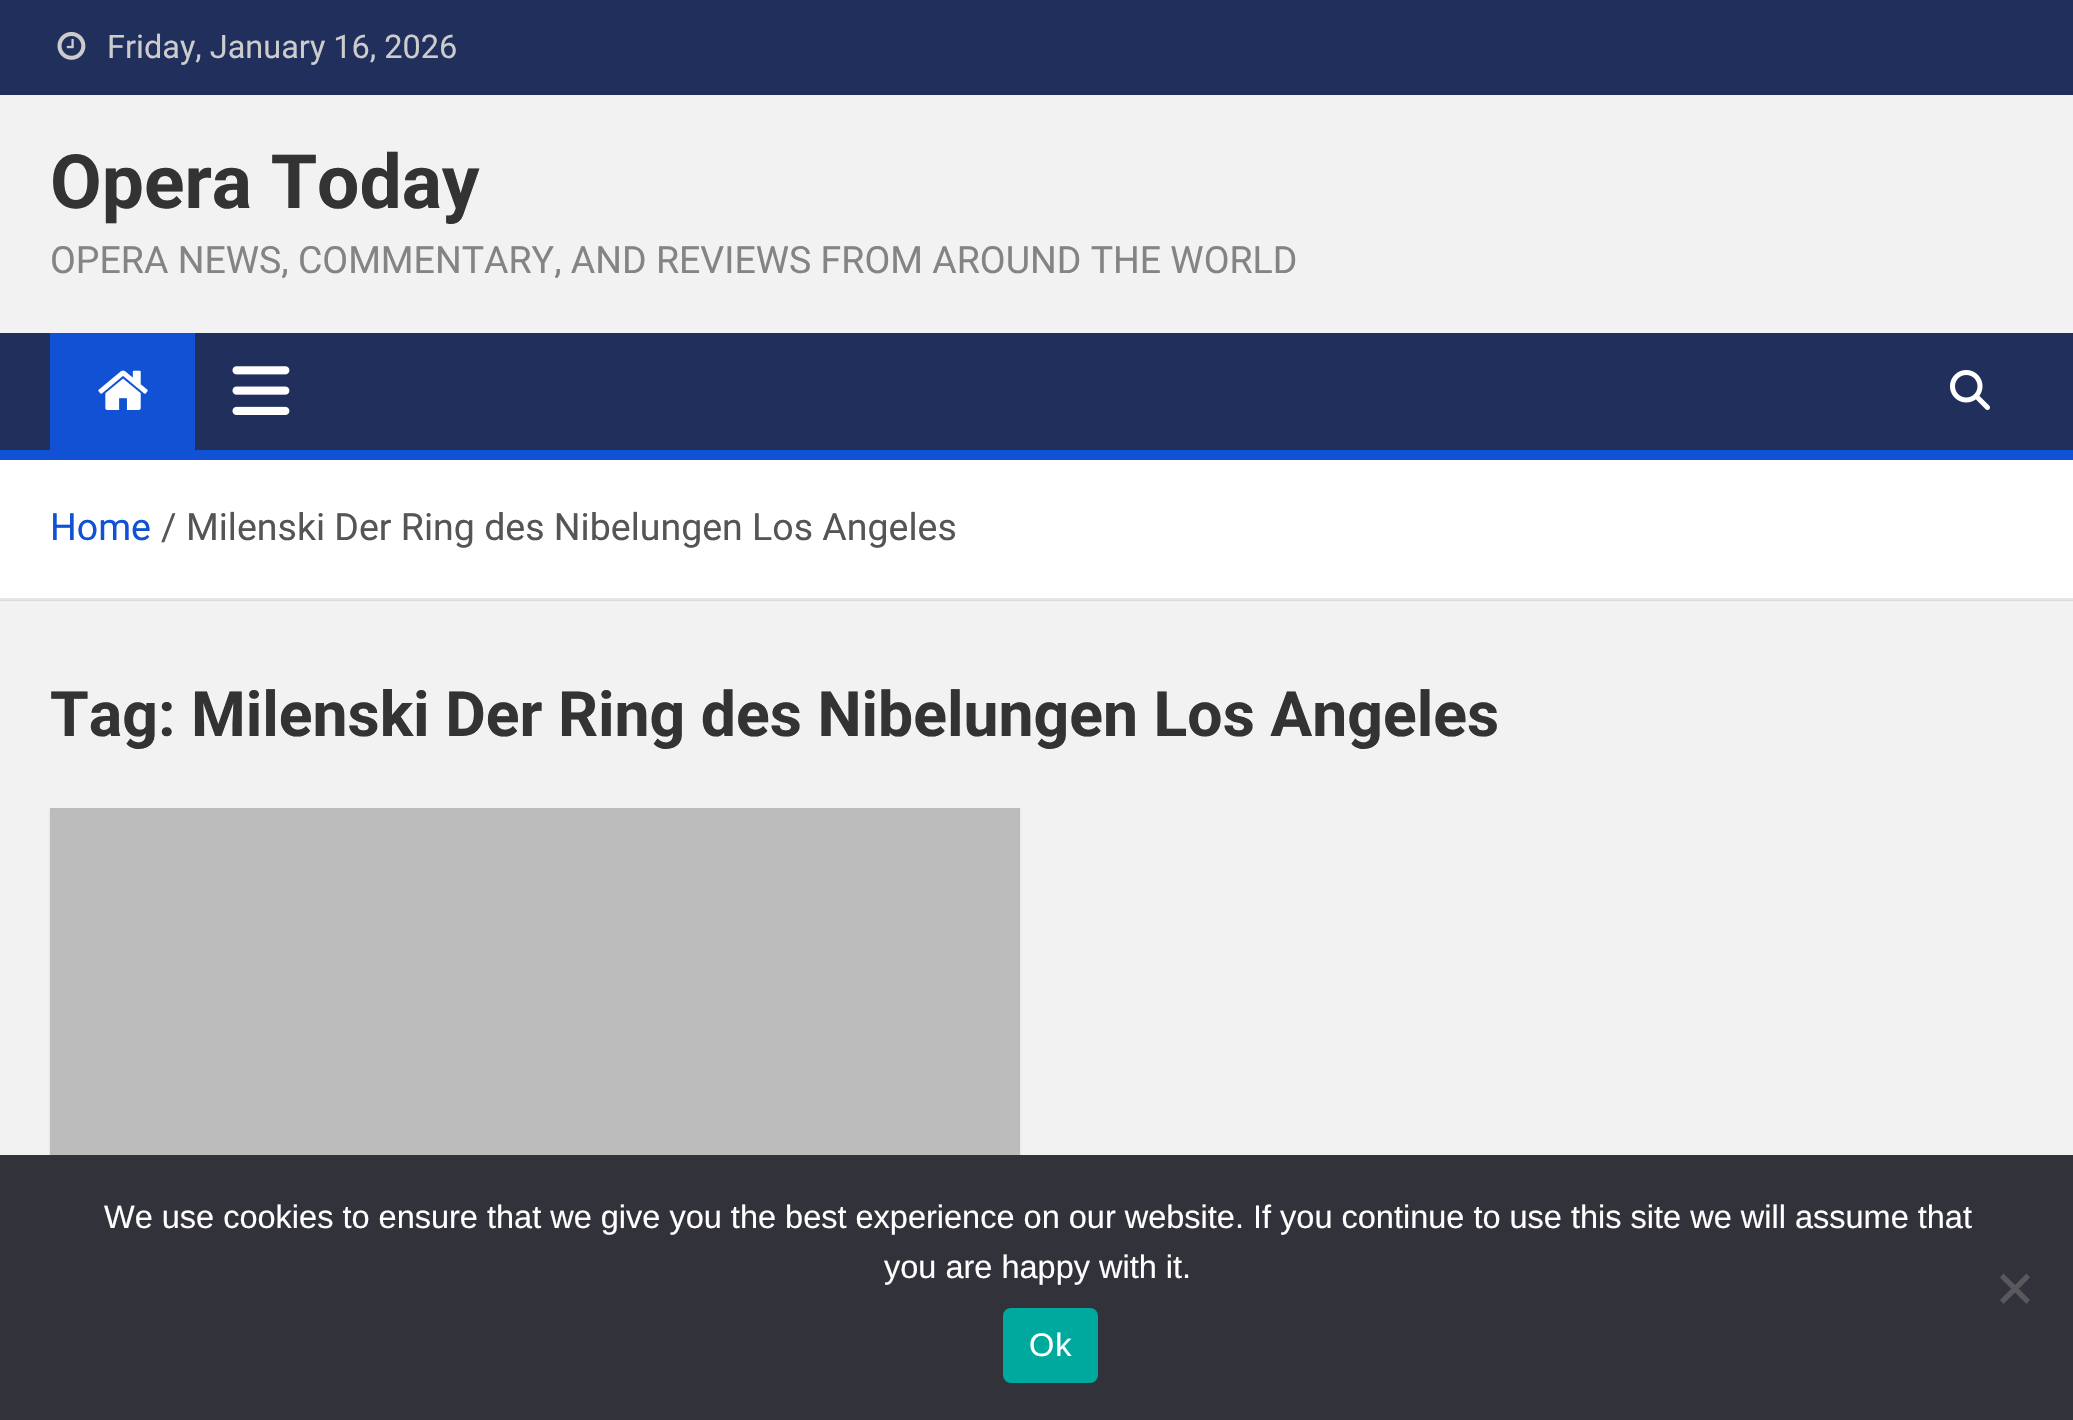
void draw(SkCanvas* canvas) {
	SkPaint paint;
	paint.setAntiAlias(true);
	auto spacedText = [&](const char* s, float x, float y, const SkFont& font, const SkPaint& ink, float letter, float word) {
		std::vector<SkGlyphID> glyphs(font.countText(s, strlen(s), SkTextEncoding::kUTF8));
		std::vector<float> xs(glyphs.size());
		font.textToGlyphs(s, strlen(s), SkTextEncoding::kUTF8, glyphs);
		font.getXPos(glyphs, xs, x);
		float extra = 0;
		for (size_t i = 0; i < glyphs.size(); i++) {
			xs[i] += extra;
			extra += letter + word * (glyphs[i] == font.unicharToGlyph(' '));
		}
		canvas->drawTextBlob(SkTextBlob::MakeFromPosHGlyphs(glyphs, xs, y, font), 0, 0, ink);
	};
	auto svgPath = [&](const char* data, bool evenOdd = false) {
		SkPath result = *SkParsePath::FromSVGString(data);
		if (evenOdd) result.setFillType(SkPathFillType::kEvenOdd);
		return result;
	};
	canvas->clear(0xfff2f2f2);
	paint.setColor(0xffdadada);
	canvas->drawRect(SkRect::MakeXYWH(0, 600, 2073, 1), paint);
	paint.setColor(0xff202f5b);
	canvas->drawRect(SkRect::MakeXYWH(0, 0, 2073, 95), paint);
	canvas->drawImageRect(SkImages::DeferredFromEncodedData(SkData::MakeFromFileName("img1.png")), SkRect::MakeXYWH(57, 32, 29, 28), SkSamplingOptions());
	SkFont f1(fontMgr->matchFamilyStyle("Roboto", SkFontStyle::Normal()), 32.5);
	f1.setSubpixel(true);
	paint.setColor(0xffcccccc);
	canvas->drawString("Friday, January 16, 2026", 107, 58, f1, paint);
	SkFont f2(fontMgr->matchFamilyStyle("Roboto", SkFontStyle::Bold()), 75);
	f2.setSubpixel(true);
	paint.setColor(0xff333333);
	canvas->drawString("Opera Today", 50, 208, f2, paint);
	SkFont f3(fontMgr->matchFamilyStyle("Roboto", SkFontStyle::Normal()), 37.5);
	f3.setSubpixel(true);
	paint.setColor(0xff848484);
	canvas->drawString("OPERA NEWS, COMMENTARY, AND REVIEWS FROM AROUND THE WORLD", 50, 273, f3, paint);
	paint.setColor(0xff202f5b);
	canvas->drawRect(SkRect::MakeXYWH(0, 333, 2073, 117), paint);
	paint.setColor(0xff1151d3);
	canvas->drawRect(SkRect::MakeXYWH(50, 333, 145, 117), paint);
	canvas->drawImageRect(SkImages::DeferredFromEncodedData(SkData::MakeFromFileName("img2.png")), SkRect::MakeXYWH(98, 370, 50, 40), SkSamplingOptions());
	canvas->drawImageRect(SkImages::DeferredFromEncodedData(SkData::MakeFromFileName("img3.png")), SkRect::MakeXYWH(232, 366, 58, 49), SkSamplingOptions());
	canvas->drawImageRect(SkImages::DeferredFromEncodedData(SkData::MakeFromFileName("img4.png")), SkRect::MakeXYWH(1950, 370, 40, 40), SkSamplingOptions());
	canvas->drawRect(SkRect::MakeXYWH(0, 450, 2073, 10), paint);
	paint.setColor(0xffffffff);
	canvas->drawRect(SkRect::MakeXYWH(0, 460, 2073, 138), paint);
	paint.setColor(0xffe6e6e6);
	canvas->drawRect(SkRect::MakeXYWH(0, 598, 2073, 2), paint);
	paint.setColor(0xff1151d3);
	canvas->drawString("Home", 50, 540, f3, paint);
	paint.setColor(0xff555555);
	canvas->drawString("/", 161, 540, f3, paint);
	canvas->drawString("Milenski Der Ring des Nibelungen Los Angeles", 186, 540, f3, paint);
	SkFont f4(fontMgr->matchFamilyStyle("Roboto", SkFontStyle::Bold()), 62.5);
	f4.setSubpixel(true);
	paint.setColor(0xff333333);
	canvas->drawString("Tag: Milenski Der Ring des Nibelungen Los Angeles", 50, 736, f4, paint);
	paint.setColor(0x1a000000);
	paint.setMaskFilter(SkMaskFilter::MakeBlur(kNormal_SkBlurStyle, 1));
	canvas->drawRect(SkRect::MakeXYWH(50, 810, 970, 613), paint);
	paint.setMaskFilter(nullptr);
	paint.setColor(0xffbcbcbc);
	canvas->drawRect(SkRect::MakeXYWH(50, 808, 970, 347), paint);
	paint.setColor(0xff32323a);
	canvas->drawRect(SkRect::MakeXYWH(0, 1155, 2073, 265), paint);
	SkFont f5(fontMgr->matchFamilyStyle("Liberation Sans", SkFontStyle::Normal()), 32.5);
	f5.setSubpixel(true);
	paint.setColor(0xffffffff);
	canvas->drawString("We use cookies to ensure that we give you the best experience on our website. If you continue to use this site we will assume that", 104, 1228, f5, paint);
	canvas->drawString("you are happy with it.", 884, 1278, f5, paint);
	paint.setColor(0xff59595d);
	canvas->drawPath(svgPath("M2026.5 1273.5L2030 1277.5L2003.5 1304L2000 1300Z"), paint);
	canvas->drawPath(svgPath("M2000 1277.5L2003.5 1273.5L2030 1300L2026.5 1304Z"), paint);
	paint.setColor(0xff00a99d);
	canvas->drawRoundRect(SkRect::MakeXYWH(1003, 1308, 95, 75), 8, 8, paint);
	paint.setColor(0xffffffff);
	spacedText("Ok", 1029, 1356, f5, paint, 1, 0);
}
